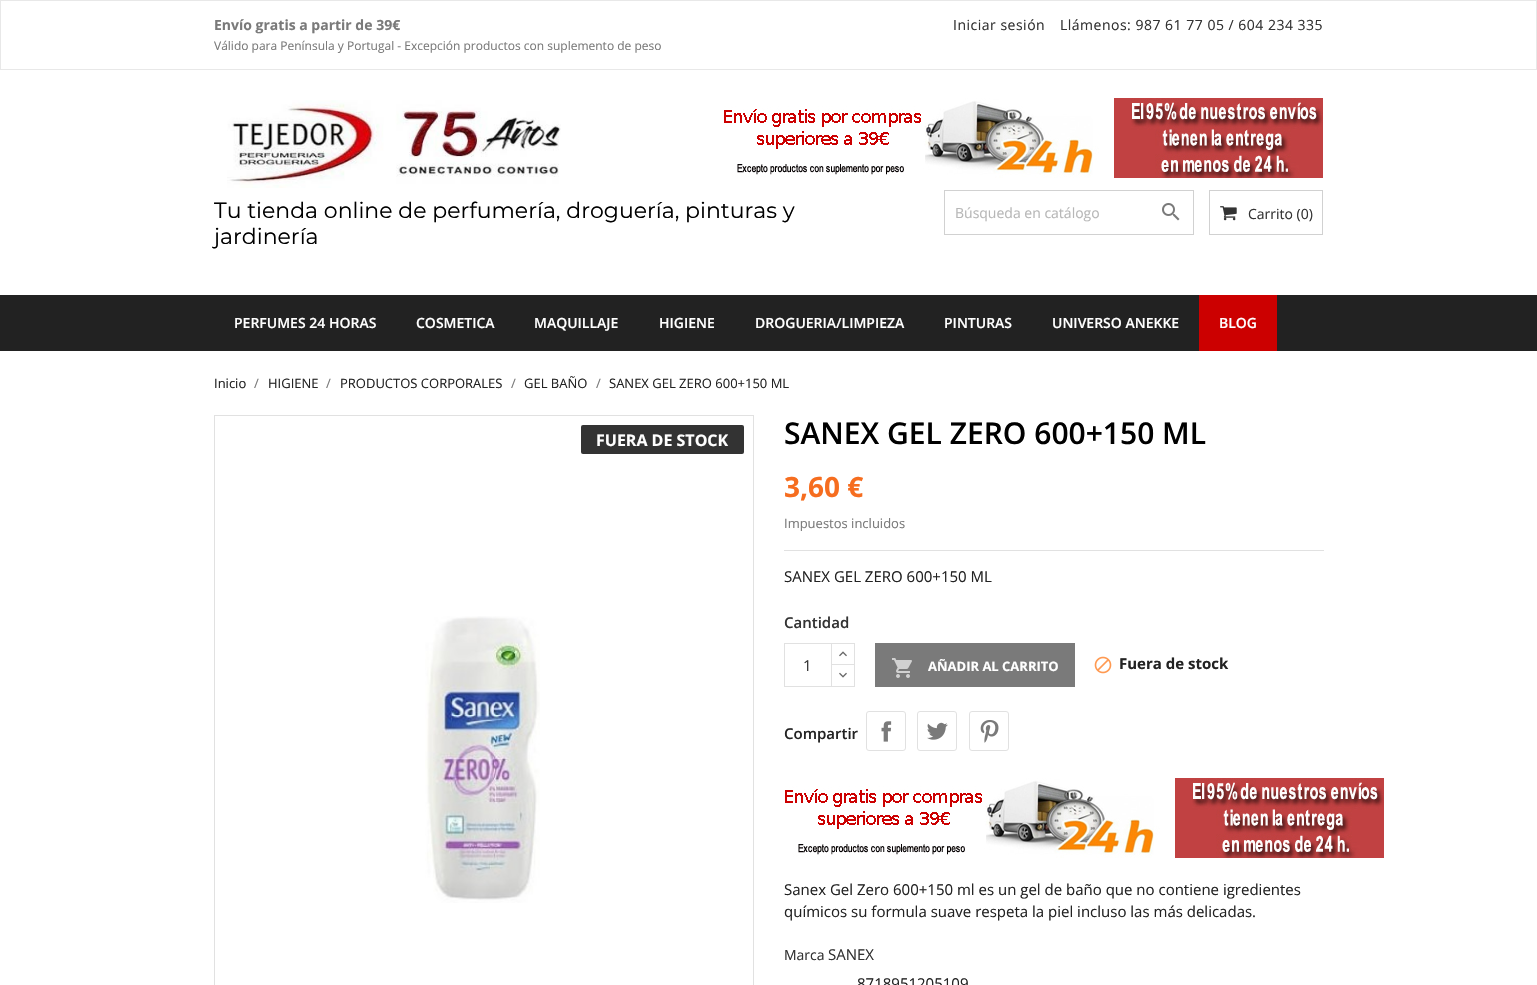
void draw(SkCanvas* canvas) {
	SkPaint paint;
	paint.setAntiAlias(true);
	auto spacedText = [&](const char* s, float x, float y, const SkFont& font, const SkPaint& ink, float letter, float word) {
		std::vector<SkGlyphID> glyphs(font.countText(s, strlen(s), SkTextEncoding::kUTF8));
		std::vector<float> xs(glyphs.size());
		font.textToGlyphs(s, strlen(s), SkTextEncoding::kUTF8, glyphs);
		font.getXPos(glyphs, xs, x);
		float extra = 0;
		for (size_t i = 0; i < glyphs.size(); i++) {
			xs[i] += extra;
			extra += letter + word * (glyphs[i] == font.unicharToGlyph(' '));
		}
		canvas->drawTextBlob(SkTextBlob::MakeFromPosHGlyphs(glyphs, xs, y, font), 0, 0, ink);
	};
	canvas->clear(0xffffffff);
	paint.setStroke(true);
	paint.setStrokeWidth(1);
	paint.setColor(0xffe8e8e8);
	canvas->drawRect(SkRect::MakeXYWH(0.5, 0.5, 1536, 69), paint);
	SkFont f1(fontMgr->matchFamilyStyle("Open Sans", SkFontStyle::Bold()), 14);
	f1.setSubpixel(true);
	paint.setStroke(false);
	paint.setColor(0xff7a7a7a);
	canvas->drawString("Envío gratis a partir de 39€", 214, 30, f1, paint);
	SkFont f2(fontMgr->matchFamilyStyle("Open Sans", SkFontStyle::Normal()), 12);
	f2.setSubpixel(true);
	canvas->drawString("Válido para Península y Portugal - Excepción productos con suplemento de peso", 214, 50, f2, paint);
	SkFont f3(fontMgr->matchFamilyStyle("Open Sans", SkFontStyle::Normal()), 14);
	f3.setSubpixel(true);
	paint.setColor(0xff333333);
	spacedText("Iniciar sesión", 953, 30, f3, paint, 0.5, 0);
	spacedText("Llámenos: 987 61 77 05 / 604 234 335", 1060, 30, f3, paint, 0.5, 0);
	canvas->drawImageRect(SkImages::DeferredFromEncodedData(SkData::MakeFromFileName("img1.png")), SkRect::MakeXYWH(227, 100, 334, 88), SkSamplingOptions());
	canvas->drawImageRect(SkImages::DeferredFromEncodedData(SkData::MakeFromFileName("img2.png")), SkRect::MakeXYWH(724, 98, 599, 80), SkSamplingOptions());
	SkFont f4(fontMgr->matchFamilyStyle("Montserrat", SkFontStyle::Normal()), 22);
	f4.setSubpixel(true);
	paint.setColor(0xff000000);
	canvas->drawString("Tu tienda online de perfumería, droguería, pinturas y", 214, 218, f4, paint);
	canvas->drawString("jardinería", 214, 244, f4, paint);
	paint.setStroke(true);
	paint.setColor(0xffd1d1d1);
	canvas->drawRect(SkRect::MakeXYWH(944.5, 190.5, 249, 44), paint);
	paint.setStroke(false);
	paint.setColor(0xffb7b7b7);
	canvas->drawString("Búsqueda en catálogo", 955, 218, f3, paint);
	canvas->drawImageRect(SkImages::DeferredFromEncodedData(SkData::MakeFromFileName("img3.png")), SkRect::MakeXYWH(1162, 203, 18, 18), SkSamplingOptions());
	paint.setStroke(true);
	paint.setColor(0xffd1d1d1);
	canvas->drawRect(SkRect::MakeXYWH(1209.5, 190.5, 113, 44), paint);
	canvas->drawImageRect(SkImages::DeferredFromEncodedData(SkData::MakeFromFileName("img4.png")), SkRect::MakeXYWH(1220, 206, 17, 15), SkSamplingOptions());
	paint.setStroke(false);
	paint.setColor(0xff333333);
	canvas->drawString("Carrito (0)", 1248, 219, f3, paint);
	paint.setColor(0xff222222);
	canvas->drawRect(SkRect::MakeXYWH(0, 295, 1537, 56), paint);
	SkFont f5(fontMgr->matchFamilyStyle("Open Sans", SkFontStyle(600, SkFontStyle::kNormal_Width, SkFontStyle::kUpright_Slant)), 14);
	f5.setSubpixel(true);
	paint.setColor(0xffffffff);
	canvas->drawString("PERFUMES 24 HORAS", 234, 328, f5, paint);
	canvas->drawString("COSMETICA", 416, 328, f5, paint);
	canvas->drawString("MAQUILLAJE", 534, 328, f5, paint);
	canvas->drawString("HIGIENE", 659, 328, f5, paint);
	canvas->drawString("DROGUERIA/LIMPIEZA", 755, 328, f5, paint);
	canvas->drawString("PINTURAS", 944, 328, f5, paint);
	canvas->drawString("UNIVERSO ANEKKE", 1052, 328, f5, paint);
	paint.setColor(0xffcc0000);
	canvas->drawRect(SkRect::MakeXYWH(1199, 295, 78, 56), paint);
	paint.setColor(0xffffffff);
	canvas->drawString("BLOG", 1219, 328, f5, paint);
	SkFont f6(fontMgr->matchFamilyStyle("Open Sans", SkFontStyle::Normal()), 13);
	f6.setSubpixel(true);
	paint.setColor(0xff232323);
	canvas->drawString("Inicio", 214, 388, f6, paint);
	paint.setColor(0xff7a7a7a);
	canvas->drawString("/", 254, 388, f6, paint);
	paint.setColor(0xff232323);
	canvas->drawString("HIGIENE", 268, 388, f6, paint);
	paint.setColor(0xff7a7a7a);
	canvas->drawString("/", 326, 388, f6, paint);
	paint.setColor(0xff232323);
	canvas->drawString("PRODUCTOS CORPORALES", 340, 388, f6, paint);
	paint.setColor(0xff7a7a7a);
	canvas->drawString("/", 511, 388, f6, paint);
	paint.setColor(0xff232323);
	canvas->drawString("GEL BAÑO", 524, 388, f6, paint);
	paint.setColor(0xff7a7a7a);
	canvas->drawString("/", 596, 388, f6, paint);
	paint.setColor(0xff232323);
	canvas->drawString("SANEX GEL ZERO 600+150 ML", 609, 388, f6, paint);
	paint.setStroke(true);
	paint.setColor(0xffe1e1e1);
	canvas->drawRect(SkRect::MakeXYWH(214.5, 415.5, 539, 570), paint);
	canvas->drawImageRect(SkImages::DeferredFromEncodedData(SkData::MakeFromFileName("img5.png")), SkRect::MakeXYWH(425, 616, 115, 287), SkSamplingOptions());
	paint.setStroke(false);
	paint.setColor(0xff333333);
	canvas->drawRoundRect(SkRect::MakeXYWH(581, 425, 163, 29), 2, 2, paint);
	SkFont f7(fontMgr->matchFamilyStyle("Open Sans", SkFontStyle::Bold()), 16);
	f7.setSubpixel(true);
	paint.setColor(0xffffffff);
	canvas->drawString("FUERA DE STOCK", 596, 446, f7, paint);
	SkFont f8(fontMgr->matchFamilyStyle("Open Sans", SkFontStyle(600, SkFontStyle::kNormal_Width, SkFontStyle::kUpright_Slant)), 30);
	f8.setSubpixel(true);
	paint.setColor(0xff000000);
	canvas->drawString("SANEX GEL ZERO 600+150 ML", 784, 444, f8, paint);
	SkFont f9(fontMgr->matchFamilyStyle("Open Sans", SkFontStyle::Bold()), 28);
	f9.setSubpixel(true);
	paint.setColor(0xfff66d1f);
	canvas->drawString("3,60 €", 784, 497, f9, paint);
	paint.setColor(0xff7a7a7a);
	canvas->drawString("Impuestos incluidos", 784, 528, f6, paint);
	paint.setColor(0xffe1e1e1);
	canvas->drawRect(SkRect::MakeXYWH(784, 550, 540, 1), paint);
	SkFont f10(fontMgr->matchFamilyStyle("Open Sans", SkFontStyle::Normal()), 15);
	f10.setSubpixel(true);
	paint.setColor(0xff232323);
	canvas->drawString("SANEX GEL ZERO 600+150 ML", 784, 582, f10, paint);
	SkFont f11(fontMgr->matchFamilyStyle("Open Sans", SkFontStyle(600, SkFontStyle::kNormal_Width, SkFontStyle::kUpright_Slant)), 15);
	f11.setSubpixel(true);
	paint.setColor(0xff333333);
	canvas->drawString("Cantidad", 784, 628, f11, paint);
	paint.setStroke(true);
	paint.setColor(0xffe1e1e1);
	canvas->drawRect(SkRect::MakeXYWH(831.5, 643.5, 23, 22), paint);
	paint.setStroke(false);
	paint.setColor(0xffffffff);
	canvas->drawRect(SkRect::MakeXYWH(832, 665, 22, 1), paint);
	paint.setStroke(true);
	paint.setColor(0xffe1e1e1);
	canvas->drawRect(SkRect::MakeXYWH(831.5, 664.5, 23, 22), paint);
	canvas->drawRect(SkRect::MakeXYWH(784.5, 643.5, 47, 43), paint);
	paint.setStroke(false);
	paint.setColor(0xff333333);
	canvas->drawString("1", 803, 671, f10, paint);
	canvas->drawImageRect(SkImages::DeferredFromEncodedData(SkData::MakeFromFileName("img6.png")), SkRect::MakeXYWH(839, 651, 8, 6), SkSamplingOptions());
	canvas->drawImageRect(SkImages::DeferredFromEncodedData(SkData::MakeFromFileName("img7.png")), SkRect::MakeXYWH(839, 672, 8, 6), SkSamplingOptions());
	paint.setColor(0xff7a7a7a);
	canvas->drawRect(SkRect::MakeXYWH(875, 643, 200, 44), paint);
	canvas->drawImageRect(SkImages::DeferredFromEncodedData(SkData::MakeFromFileName("img8.png")), SkRect::MakeXYWH(892, 658, 20, 20), SkSamplingOptions());
	SkFont f12(fontMgr->matchFamilyStyle("Open Sans", SkFontStyle::Bold()), 13);
	f12.setSubpixel(true);
	paint.setColor(0xffffffff);
	canvas->drawString("AÑADIR AL CARRITO", 928, 671, f12, paint);
	canvas->drawImageRect(SkImages::DeferredFromEncodedData(SkData::MakeFromFileName("img9.png")), SkRect::MakeXYWH(1094, 656, 18, 18), SkSamplingOptions());
	SkFont f13(fontMgr->matchFamilyStyle("Open Sans", SkFontStyle::Bold()), 15);
	f13.setSubpixel(true);
	paint.setColor(0xff232323);
	canvas->drawString("Fuera de stock", 1119, 669, f13, paint);
	canvas->drawString("Compartir", 784, 739, f11, paint);
	canvas->drawImageRect(SkImages::DeferredFromEncodedData(SkData::MakeFromFileName("img10.png")), SkRect::MakeXYWH(881, 721, 11, 21), SkSamplingOptions());
	paint.setStroke(true);
	paint.setColor(0xffe1e1e1);
	canvas->drawRoundRect(SkRect::MakeXYWH(866.5, 711.5, 39, 39), 2.5, 2.5, paint);
	canvas->drawImageRect(SkImages::DeferredFromEncodedData(SkData::MakeFromFileName("img11.png")), SkRect::MakeXYWH(927, 722, 21, 18), SkSamplingOptions());
	canvas->drawRoundRect(SkRect::MakeXYWH(917.5, 711.5, 39, 39), 2.5, 2.5, paint);
	canvas->drawImageRect(SkImages::DeferredFromEncodedData(SkData::MakeFromFileName("img12.png")), SkRect::MakeXYWH(980, 720, 19, 23), SkSamplingOptions());
	canvas->drawRoundRect(SkRect::MakeXYWH(969.5, 711.5, 39, 39), 2.5, 2.5, paint);
	canvas->drawImageRect(SkImages::DeferredFromEncodedData(SkData::MakeFromFileName("img2.png")), SkRect::MakeXYWH(785, 778, 599, 80), SkSamplingOptions());
	paint.setStroke(false);
	paint.setColor(0xff232323);
	canvas->drawString("Sanex Gel Zero 600+150 ml es un gel de baño que no contiene igredientes", 784, 895, f10, paint);
	canvas->drawString("químicos su formula suave respeta la piel incluso las más delicadas.", 784, 917, f10, paint);
	paint.setColor(0xff333333);
	canvas->drawString("Marca", 784, 960, f3, paint);
	canvas->drawString("SANEX", 828, 960, f10, paint);
	paint.setColor(0xff232323);
	canvas->drawString("8718951205109", 857, 989, f10, paint);
}
